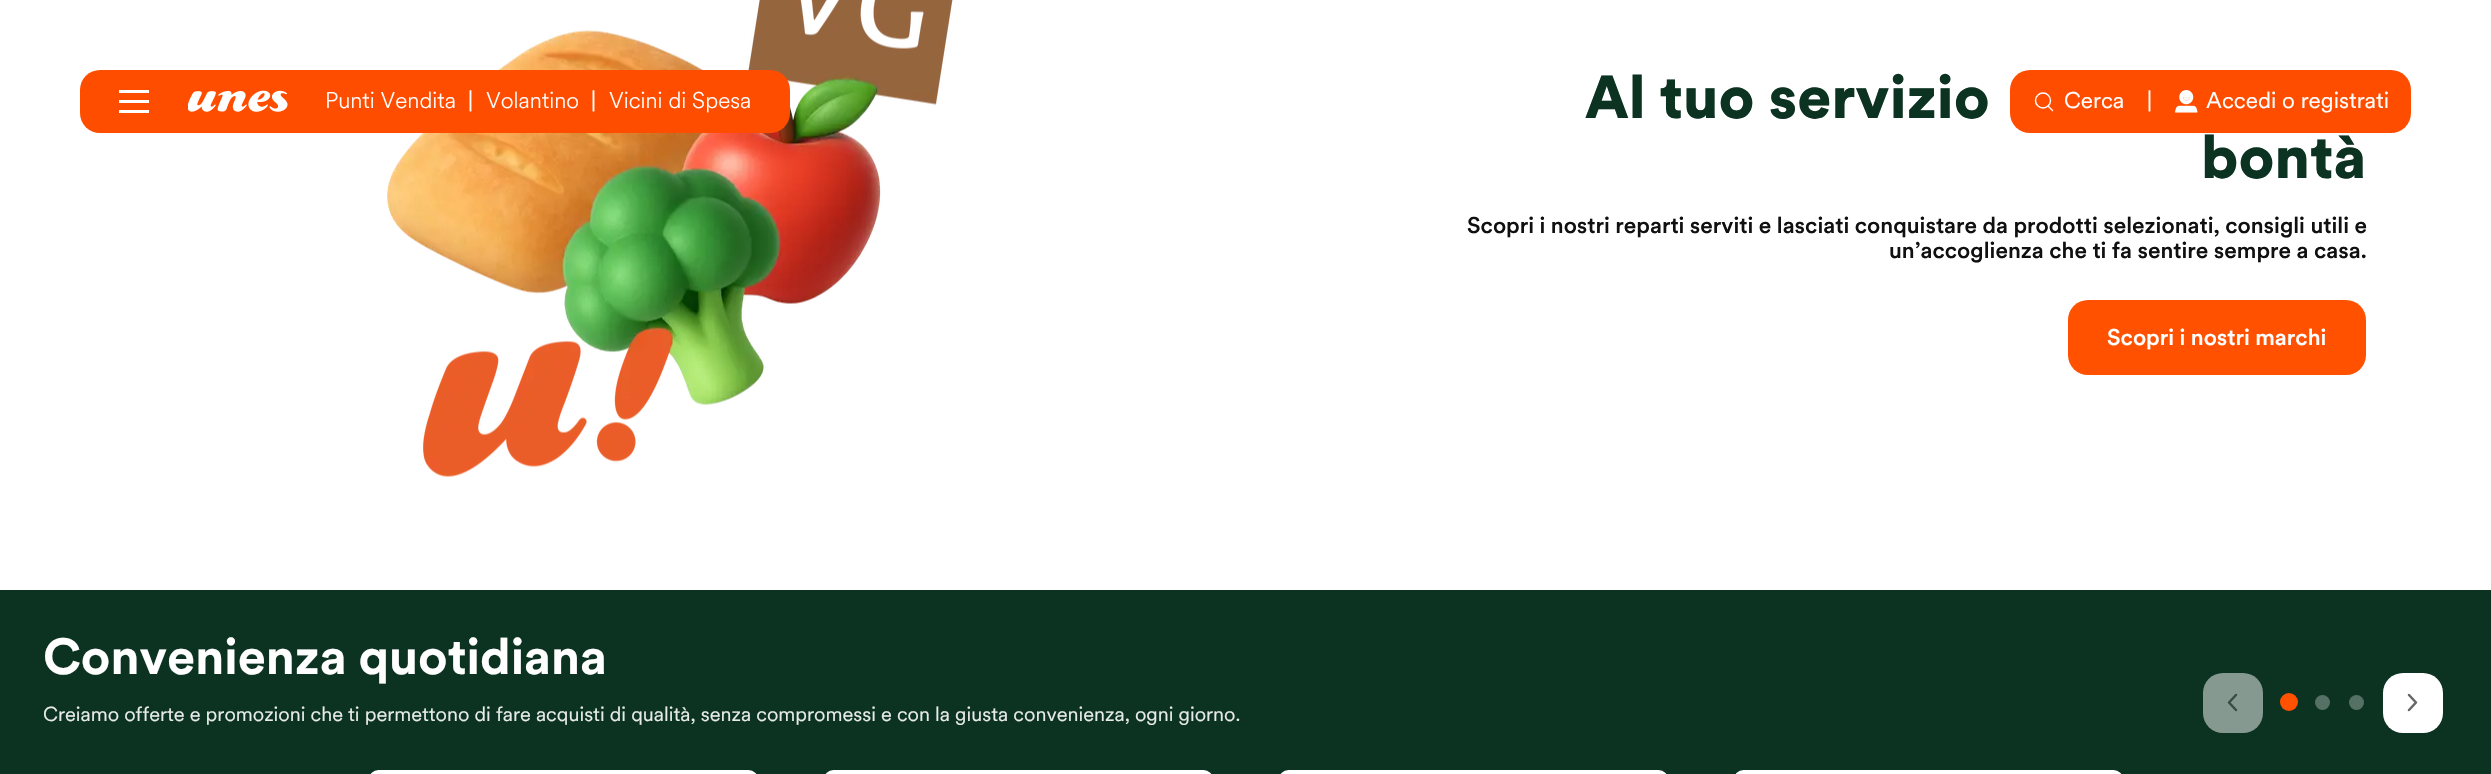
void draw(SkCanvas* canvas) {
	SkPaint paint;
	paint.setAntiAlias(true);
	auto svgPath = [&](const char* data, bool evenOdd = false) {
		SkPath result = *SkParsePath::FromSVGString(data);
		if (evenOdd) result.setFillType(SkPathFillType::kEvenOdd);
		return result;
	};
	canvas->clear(0xffffffff);
	canvas->drawImageRect(SkImages::DeferredFromEncodedData(SkData::MakeFromFileName("img1.png")), SkRect::MakeXYWH(387, 0, 566, 477), SkSamplingOptions());
	SkFont f1(fontMgr->matchFamilyStyle("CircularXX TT", SkFontStyle(900, SkFontStyle::kNormal_Width, SkFontStyle::kUpright_Slant)), 60);
	f1.setSubpixel(true);
	paint.setColor(0xff0c3222);
	canvas->drawString("Al tuo servizio", 1585, 118, f1, paint);
	canvas->drawString("bontà", 2201, 178, f1, paint);
	SkFont f2(fontMgr->matchFamilyStyle("CircularXX TT", SkFontStyle(500, SkFontStyle::kNormal_Width, SkFontStyle::kUpright_Slant)), 22.5);
	f2.setSubpixel(true);
	paint.setColor(0xff101010);
	canvas->drawString("Scopri i nostri reparti serviti e lasciati conquistare da prodotti selezionati, consigli utili e", 1467, 233, f2, paint);
	canvas->drawString("un’accoglienza che ti fa sentire sempre a casa.", 1889, 258, f2, paint);
	paint.setColor(0xffff5100);
	canvas->drawRoundRect(SkRect::MakeXYWH(2068, 300, 298, 75), 20, 20, paint);
	paint.setColor(0xffffffff);
	canvas->drawString("Scopri i nostri marchi", 2107, 345, f2, paint);
	paint.setColor(0xff0c3222);
	canvas->drawRect(SkRect::MakeXYWH(0, 590, 2491, 184), paint);
	SkFont f3(fontMgr->matchFamilyStyle("CircularXX TT", SkFontStyle::Bold()), 50);
	f3.setSubpixel(true);
	paint.setColor(0xffffffff);
	canvas->drawString("Convenienza quotidiana", 43, 674, f3, paint);
	SkFont f4(fontMgr->matchFamilyStyle("CircularXX TT", SkFontStyle::Normal()), 20);
	f4.setSubpixel(true);
	paint.setColor(0xffe7ebe9);
	canvas->drawString("Creiamo offerte e promozioni che ti permettono di fare acquisti di qualità, senza compromessi e con la giusta convenienza, ogni giorno.", 43, 721, f4, paint);
	paint.setColor(0xff869991);
	canvas->drawRoundRect(SkRect::MakeXYWH(2203, 673, 60, 60), 20, 20, paint);
	paint.setStroke(true);
	paint.setStrokeWidth(2.5);
	paint.setStrokeCap(SkPaint::kRound_Cap);
	paint.setStrokeJoin(SkPaint::kRound_Join);
	paint.setColor(0xff394c44);
	canvas->drawPath(svgPath("M2236 710L2229 702.5L2236 695"), paint);
	paint.setStroke(false);
	paint.setColor(0xffff5100);
	canvas->drawCircle(2289, 702, 9, paint);
	paint.setColor(0xff557064);
	canvas->drawCircle(2322.5, 702.5, 7.5, paint);
	canvas->drawCircle(2356.5, 702.5, 7.5, paint);
	paint.setColor(0xffffffff);
	canvas->drawRoundRect(SkRect::MakeXYWH(2383, 673, 60, 60), 20, 20, paint);
	paint.setStroke(true);
	paint.setColor(0xff666666);
	canvas->drawPath(svgPath("M2409 710L2416 702.5L2409 695"), paint);
	paint.setStroke(false);
	paint.setColor(0xffffffff);
	canvas->drawRoundRect(SkRect::MakeXYWH(369, 770, 389, 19), 15, 15, paint);
	canvas->drawRoundRect(SkRect::MakeXYWH(824, 770, 389, 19), 15, 15, paint);
	canvas->drawRoundRect(SkRect::MakeXYWH(1279, 770, 389, 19), 15, 15, paint);
	canvas->drawRoundRect(SkRect::MakeXYWH(1734, 770, 389, 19), 15, 15, paint);
	paint.setColor(0xffff4d00);
	canvas->drawRoundRect(SkRect::MakeXYWH(80, 70, 710, 63), 20, 20, paint);
	paint.setColor(0xffffffff);
	canvas->drawRect(SkRect::MakeXYWH(119, 100, 30, 3), paint);
	canvas->drawRect(SkRect::MakeXYWH(119, 90, 30, 3), paint);
	canvas->drawRect(SkRect::MakeXYWH(119, 110, 30, 3), paint);
	canvas->drawImageRect(SkImages::DeferredFromEncodedData(SkData::MakeFromFileName("img2.png")), SkRect::MakeXYWH(188, 90, 100, 22), SkSamplingOptions());
	SkFont f5(fontMgr->matchFamilyStyle("CircularXX TT", SkFontStyle(300, SkFontStyle::kNormal_Width, SkFontStyle::kUpright_Slant)), 22.5);
	f5.setSubpixel(true);
	canvas->drawString("Punti Vendita", 325, 108, f5, paint);
	SkFont f6(fontMgr->matchFamilyStyle("CircularXX TT", SkFontStyle::Normal()), 22.5);
	f6.setSubpixel(true);
	canvas->drawString("|", 468, 108, f6, paint);
	canvas->drawString("Volantino", 486, 108, f5, paint);
	canvas->drawString("|", 591, 108, f6, paint);
	canvas->drawString("Vicini di Spesa", 609, 108, f5, paint);
	paint.setColor(0xffff4d00);
	canvas->drawRoundRect(SkRect::MakeXYWH(2010, 70, 401, 63), 20, 20, paint);
	paint.setStroke(true);
	paint.setStrokeWidth(1.4);
	paint.setStrokeCap(SkPaint::kButt_Cap);
	paint.setStrokeJoin(SkPaint::kMiter_Join);
	paint.setColor(0xffffffff);
	canvas->drawCircle(2043, 100.5, 7.5, paint);
	paint.setStrokeCap(SkPaint::kRound_Cap);
	paint.setStrokeJoin(SkPaint::kRound_Join);
	canvas->drawPath(svgPath("M2048 106L2052.5 110.5"), paint);
	paint.setStroke(false);
	canvas->drawString("Cerca", 2064, 108, f6, paint);
	canvas->drawString("|", 2147, 108, f6, paint);
	canvas->drawImageRect(SkImages::DeferredFromEncodedData(SkData::MakeFromFileName("img3.png")), SkRect::MakeXYWH(2175, 90, 23, 23), SkSamplingOptions());
	canvas->drawString("Accedi o registrati", 2206, 108, f6, paint);
}
